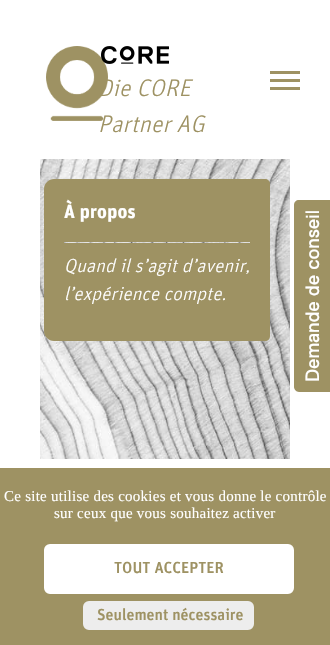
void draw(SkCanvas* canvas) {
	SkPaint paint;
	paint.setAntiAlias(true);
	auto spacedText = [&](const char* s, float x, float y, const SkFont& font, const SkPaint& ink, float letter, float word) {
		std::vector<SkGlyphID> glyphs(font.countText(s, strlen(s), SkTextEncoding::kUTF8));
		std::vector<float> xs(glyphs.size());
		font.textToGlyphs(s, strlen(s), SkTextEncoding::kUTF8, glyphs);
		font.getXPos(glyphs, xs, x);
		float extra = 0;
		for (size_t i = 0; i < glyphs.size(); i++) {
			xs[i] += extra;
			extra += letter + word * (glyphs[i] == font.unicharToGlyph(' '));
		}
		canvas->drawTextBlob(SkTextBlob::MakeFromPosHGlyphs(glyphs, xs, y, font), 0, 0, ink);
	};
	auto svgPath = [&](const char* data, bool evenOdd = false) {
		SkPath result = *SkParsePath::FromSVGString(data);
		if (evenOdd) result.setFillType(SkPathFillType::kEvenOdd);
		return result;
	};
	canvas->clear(0xffffffff);
	canvas->drawImageRect(SkImages::DeferredFromEncodedData(SkData::MakeFromFileName("img1.png")), SkRect::MakeXYWH(46, 46, 62, 75), SkSamplingOptions());
	canvas->drawImageRect(SkImages::DeferredFromEncodedData(SkData::MakeFromFileName("img2.png")), SkRect::MakeXYWH(101, 46, 68, 18), SkSamplingOptions());
	SkFont f1(fontMgr->matchFamilyStyle("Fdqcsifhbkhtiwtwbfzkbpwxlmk", SkFontStyle::Italic()), 24);
	f1.setSubpixel(true);
	paint.setColor(0xff9e9263);
	spacedText("Die CORE", 98, 96, f1, paint, 0.25, 0);
	spacedText("Partner AG", 98, 132, f1, paint, 0.25, 0);
	canvas->drawRect(SkRect::MakeXYWH(270, 79, 30, 3), paint);
	canvas->drawRect(SkRect::MakeXYWH(270, 71, 30, 3), paint);
	canvas->drawRect(SkRect::MakeXYWH(270, 87, 30, 3), paint);
	canvas->drawImageRect(SkImages::DeferredFromEncodedData(SkData::MakeFromFileName("img3.png")), SkRect::MakeXYWH(40, 159, 250, 300), SkSamplingOptions());
	canvas->drawPath(svgPath("M54 179H265C268 179 270 181 270 184V242H44V189C44 183.5 48.5 179 54 179Z"), paint);
	SkFont f2(fontMgr->matchFamilyStyle("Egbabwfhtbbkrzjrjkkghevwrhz", SkFontStyle::Bold()), 19);
	f2.setSubpixel(true);
	paint.setColor(0xffffffff);
	spacedText("À propos", 64, 218, f2, paint, 0.25, 0);
	paint.setColor(0xff9e9263);
	canvas->drawRect(SkRect::MakeXYWH(250, 242, 20, 1), paint);
	canvas->drawRect(SkRect::MakeXYWH(44, 242, 20, 1), paint);
	canvas->drawPath(svgPath("M44 243H270V336C270 339 268 341 265 341H54C48.5 341 44 336.5 44 331Z"), paint);
	SkFont f3(fontMgr->matchFamilyStyle("Fdqcsifhbkhtiwtwbfzkbpwxlmk", SkFontStyle::Italic()), 19);
	f3.setSubpixel(true);
	paint.setColor(0xffffffff);
	spacedText("Quand il s’agit d’avenir,", 64, 272, f3, paint, 0.25, 0);
	spacedText("l’expérience compte.", 64, 300, f3, paint, 0.25, 0);
	paint.setColor(0xff9e9263);
	canvas->drawPath(svgPath("M294 387V205C294 202 296 200 299 200H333V392H299C296 392 294 389 294 387Z"), paint);
	SkFont f4(fontMgr->matchFamilyStyle("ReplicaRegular", SkFontStyle::Normal()), 19.25);
	f4.setSubpixel(true);
	paint.setColor(0xffffffff);
	canvas->save();
	canvas->rotate(-90, 319, 382);
	spacedText("Demande de conseil", 319, 382, f4, paint, 0.25, 0);
	canvas->restore();
	paint.setColor(0xff9e9263);
	canvas->drawRect(SkRect::MakeXYWH(0, 468, 330, 177), paint);
	SkFont f5(fontMgr->matchFamilyStyle("Liberation Serif", SkFontStyle::Normal()), 15);
	f5.setSubpixel(true);
	paint.setColor(0xffffffff);
	spacedText("Ce site utilise des cookies et vous donne le contrôle", 4, 501, f5, paint, 0.25, 0);
	spacedText("sur ceux que vous souhaitez activer", 54, 518, f5, paint, 0.25, 0);
	canvas->drawRoundRect(SkRect::MakeXYWH(43, 543, 252, 52), 7, 7, paint);
	paint.setStroke(true);
	paint.setStrokeWidth(2);
	paint.setColor(0xff9e9263);
	canvas->drawRoundRect(SkRect::MakeXYWH(43, 543, 252, 52), 7, 7, paint);
	SkFont f6(fontMgr->matchFamilyStyle("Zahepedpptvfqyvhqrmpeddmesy", SkFontStyle(500, SkFontStyle::kNormal_Width, SkFontStyle::kUpright_Slant)), 16);
	f6.setSubpixel(true);
	paint.setStroke(false);
	canvas->drawString("TOUT ACCEPTER", 114, 573, f6, paint);
	paint.setColor(0xffededed);
	canvas->drawRoundRect(SkRect::MakeXYWH(82, 600, 173, 31), 7, 7, paint);
	paint.setStroke(true);
	paint.setColor(0xff9e9263);
	canvas->drawRoundRect(SkRect::MakeXYWH(82, 600, 173, 31), 7, 7, paint);
	paint.setStroke(false);
	canvas->drawString("Seulement nécessaire", 97, 620, f6, paint);
}
